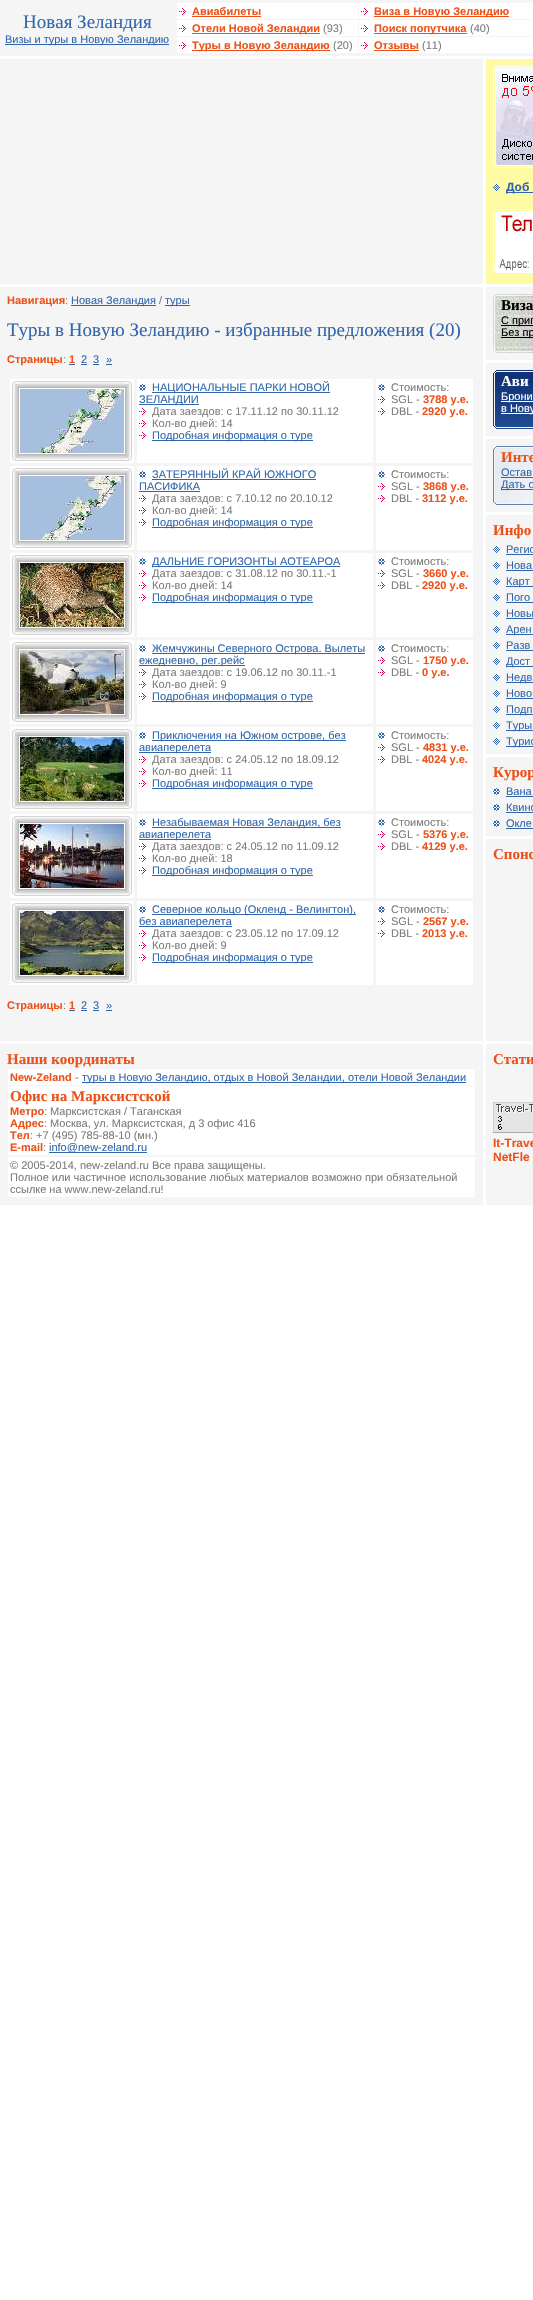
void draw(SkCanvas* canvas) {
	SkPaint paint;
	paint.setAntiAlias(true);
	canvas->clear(0xffffffff);
	paint.setColor(0xfff5f5f5);
	canvas->drawRect(SkRect::MakeXYWH(0, 0, 533, 56), paint);
	SkFont f1(fontMgr->matchFamilyStyle("Liberation Serif", SkFontStyle::Normal()), 19);
	f1.setSubpixel(true);
	paint.setColor(0xff3166ac);
	canvas->drawString("Новая Зеландия", 23, 28, f1, paint);
	canvas->drawRect(SkRect::MakeXYWH(5, 44, 164, 1), paint);
	SkFont f2(fontMgr->matchFamilyStyle("Liberation Sans", SkFontStyle::Normal()), 11);
	f2.setSubpixel(true);
	canvas->drawString("Визы и туры в Новую Зеландию", 5, 43, f2, paint);
	paint.setColor(0xffffffff);
	canvas->drawRect(SkRect::MakeXYWH(177, 3, 181, 16), paint);
	canvas->drawImageRect(SkImages::DeferredFromEncodedData(SkData::MakeFromFileName("img1.png")), SkRect::MakeXYWH(179, 8, 7, 7), SkSamplingOptions());
	SkFont f3(fontMgr->matchFamilyStyle("Liberation Sans", SkFontStyle::Bold()), 11);
	f3.setSubpixel(true);
	paint.setColor(0xffed5118);
	canvas->drawString("Авиабилеты", 192, 15, f3, paint);
	canvas->drawRect(SkRect::MakeXYWH(192, 16, 69, 1), paint);
	paint.setColor(0xffffffff);
	canvas->drawRect(SkRect::MakeXYWH(359, 3, 174, 16), paint);
	canvas->drawImageRect(SkImages::DeferredFromEncodedData(SkData::MakeFromFileName("img1.png")), SkRect::MakeXYWH(361, 8, 7, 7), SkSamplingOptions());
	paint.setColor(0xffed5118);
	canvas->drawRect(SkRect::MakeXYWH(374, 16, 135, 1), paint);
	canvas->drawString("Виза в Новую Зеландию", 374, 15, f3, paint);
	paint.setColor(0xffffffff);
	canvas->drawRect(SkRect::MakeXYWH(177, 20, 181, 16), paint);
	canvas->drawImageRect(SkImages::DeferredFromEncodedData(SkData::MakeFromFileName("img1.png")), SkRect::MakeXYWH(179, 25, 7, 7), SkSamplingOptions());
	paint.setColor(0xffed5118);
	canvas->drawRect(SkRect::MakeXYWH(192, 33, 128, 1), paint);
	canvas->drawString("Отели Новой Зеландии", 192, 32, f3, paint);
	paint.setColor(0xff7c7c7b);
	canvas->drawString("(93)", 323, 32, f2, paint);
	paint.setColor(0xffffffff);
	canvas->drawRect(SkRect::MakeXYWH(359, 20, 174, 16), paint);
	canvas->drawImageRect(SkImages::DeferredFromEncodedData(SkData::MakeFromFileName("img1.png")), SkRect::MakeXYWH(361, 25, 7, 7), SkSamplingOptions());
	paint.setColor(0xffed5118);
	canvas->drawRect(SkRect::MakeXYWH(374, 33, 93, 1), paint);
	canvas->drawString("Поиск попутчика", 374, 32, f3, paint);
	paint.setColor(0xff7c7c7b);
	canvas->drawString("(40)", 470, 32, f2, paint);
	paint.setColor(0xffffffff);
	canvas->drawRect(SkRect::MakeXYWH(177, 37, 181, 16), paint);
	canvas->drawImageRect(SkImages::DeferredFromEncodedData(SkData::MakeFromFileName("img1.png")), SkRect::MakeXYWH(179, 42, 7, 7), SkSamplingOptions());
	paint.setColor(0xffed5118);
	canvas->drawRect(SkRect::MakeXYWH(192, 50, 138, 1), paint);
	canvas->drawString("Туры в Новую Зеландию", 192, 49, f3, paint);
	paint.setColor(0xff7c7c7b);
	canvas->drawString("(20)", 333, 49, f2, paint);
	paint.setColor(0xffffffff);
	canvas->drawRect(SkRect::MakeXYWH(359, 37, 174, 16), paint);
	canvas->drawImageRect(SkImages::DeferredFromEncodedData(SkData::MakeFromFileName("img1.png")), SkRect::MakeXYWH(361, 42, 7, 7), SkSamplingOptions());
	paint.setColor(0xffed5118);
	canvas->drawString("Отзывы", 374, 49, f3, paint);
	canvas->drawRect(SkRect::MakeXYWH(374, 50, 45, 1), paint);
	paint.setColor(0xff7c7c7b);
	canvas->drawString("(11)", 422, 49, f2, paint);
	paint.setColor(0xfff5f5f5);
	canvas->drawRect(SkRect::MakeXYWH(0, 59, 483, 225), paint);
	paint.setColor(0xfffffba5);
	canvas->drawRect(SkRect::MakeXYWH(486, 59, 47, 225), paint);
	canvas->drawImageRect(SkImages::DeferredFromEncodedData(SkData::MakeFromFileName("img2.png")), SkRect::MakeXYWH(493, 66, 40, 102), SkSamplingOptions());
	canvas->drawImageRect(SkImages::DeferredFromEncodedData(SkData::MakeFromFileName("img3.png")), SkRect::MakeXYWH(493, 184, 7, 7), SkSamplingOptions());
	paint.setColor(0xff3166ac);
	canvas->drawRect(SkRect::MakeXYWH(506, 192, 27, 1), paint);
	SkFont f4(fontMgr->matchFamilyStyle("Liberation Sans", SkFontStyle::Bold()), 12);
	f4.setSubpixel(true);
	canvas->drawString("Доб", 506, 191, f4, paint);
	canvas->drawImageRect(SkImages::DeferredFromEncodedData(SkData::MakeFromFileName("img4.png")), SkRect::MakeXYWH(493, 209, 40, 64), SkSamplingOptions());
	paint.setColor(0xfff5f5f5);
	canvas->drawRect(SkRect::MakeXYWH(0, 287, 483, 754), paint);
	paint.setColor(0xffed5118);
	canvas->drawString("Навигация", 7, 304, f3, paint);
	paint.setColor(0xff7c7c7b);
	canvas->drawString(":", 65, 304, f2, paint);
	paint.setColor(0xff3166ac);
	canvas->drawRect(SkRect::MakeXYWH(71, 305, 85, 1), paint);
	canvas->drawString("Новая Зеландия", 71, 304, f2, paint);
	paint.setColor(0xff7c7c7b);
	canvas->drawString("/", 159, 304, f2, paint);
	paint.setColor(0xff3166ac);
	canvas->drawRect(SkRect::MakeXYWH(165, 305, 25, 1), paint);
	canvas->drawString("туры", 165, 304, f2, paint);
	canvas->drawString("Туры в Новую Зеландию - избранные предложения (20)", 7, 336, f1, paint);
	paint.setColor(0xffed5118);
	canvas->drawString("Страницы", 7, 363, f3, paint);
	paint.setColor(0xff7c7c7b);
	canvas->drawString(":", 63, 363, f2, paint);
	paint.setColor(0xffed5118);
	canvas->drawString("1", 69, 363, f3, paint);
	paint.setColor(0xff3166ac);
	canvas->drawRect(SkRect::MakeXYWH(69, 364, 6, 1), paint);
	canvas->drawString("2", 81, 363, f2, paint);
	canvas->drawRect(SkRect::MakeXYWH(81, 364, 6, 1), paint);
	canvas->drawString("3", 93, 363, f2, paint);
	canvas->drawRect(SkRect::MakeXYWH(93, 364, 6, 1), paint);
	canvas->drawString("»", 106, 363, f2, paint);
	canvas->drawRect(SkRect::MakeXYWH(106, 364, 6, 1), paint);
	paint.setColor(0xffffffff);
	canvas->drawRect(SkRect::MakeXYWH(10, 379, 124, 84), paint);
	canvas->drawImageRect(SkImages::DeferredFromEncodedData(SkData::MakeFromFileName("img5.png")), SkRect::MakeXYWH(12, 381, 120, 80), SkSamplingOptions());
	canvas->drawRect(SkRect::MakeXYWH(137, 379, 236, 84), paint);
	canvas->drawImageRect(SkImages::DeferredFromEncodedData(SkData::MakeFromFileName("img6.png")), SkRect::MakeXYWH(139, 384, 7, 7), SkSamplingOptions());
	paint.setColor(0xff3166ac);
	canvas->drawRect(SkRect::MakeXYWH(152, 392, 178, 1), paint);
	canvas->drawString("НАЦИОНАЛЬНЫЕ ПАРКИ НОВОЙ", 152, 391, f2, paint);
	canvas->drawRect(SkRect::MakeXYWH(139, 404, 60, 1), paint);
	canvas->drawString("ЗЕЛАНДИИ", 139, 403, f2, paint);
	canvas->drawImageRect(SkImages::DeferredFromEncodedData(SkData::MakeFromFileName("img1.png")), SkRect::MakeXYWH(139, 408, 7, 7), SkSamplingOptions());
	paint.setColor(0xff7c7c7b);
	canvas->drawString("Дата заездов: с 17.11.12 по 30.11.12", 152, 415, f2, paint);
	canvas->drawImageRect(SkImages::DeferredFromEncodedData(SkData::MakeFromFileName("img1.png")), SkRect::MakeXYWH(139, 420, 7, 7), SkSamplingOptions());
	canvas->drawString("Кол-во дней: 14", 152, 427, f2, paint);
	canvas->drawImageRect(SkImages::DeferredFromEncodedData(SkData::MakeFromFileName("img1.png")), SkRect::MakeXYWH(139, 432, 7, 7), SkSamplingOptions());
	paint.setColor(0xff3166ac);
	canvas->drawRect(SkRect::MakeXYWH(152, 440, 161, 1), paint);
	canvas->drawString("Подробная информация о туре", 152, 439, f2, paint);
	paint.setColor(0xffffffff);
	canvas->drawRect(SkRect::MakeXYWH(376, 379, 97, 84), paint);
	canvas->drawImageRect(SkImages::DeferredFromEncodedData(SkData::MakeFromFileName("img6.png")), SkRect::MakeXYWH(378, 384, 7, 7), SkSamplingOptions());
	paint.setColor(0xff7c7c7b);
	canvas->drawString("Стоимость:", 391, 391, f2, paint);
	canvas->drawImageRect(SkImages::DeferredFromEncodedData(SkData::MakeFromFileName("img1.png")), SkRect::MakeXYWH(378, 396, 7, 7), SkSamplingOptions());
	canvas->drawString("SGL -", 391, 403, f2, paint);
	paint.setColor(0xffed5118);
	canvas->drawString("3788 у.е.", 423, 403, f3, paint);
	canvas->drawImageRect(SkImages::DeferredFromEncodedData(SkData::MakeFromFileName("img1.png")), SkRect::MakeXYWH(378, 408, 7, 7), SkSamplingOptions());
	paint.setColor(0xff7c7c7b);
	canvas->drawString("DBL -", 391, 415, f2, paint);
	paint.setColor(0xffed5118);
	canvas->drawString("2920 у.е.", 422, 415, f3, paint);
	paint.setColor(0xffffffff);
	canvas->drawRect(SkRect::MakeXYWH(10, 466, 124, 84), paint);
	canvas->drawImageRect(SkImages::DeferredFromEncodedData(SkData::MakeFromFileName("img7.png")), SkRect::MakeXYWH(12, 468, 120, 80), SkSamplingOptions());
	canvas->drawRect(SkRect::MakeXYWH(137, 466, 236, 84), paint);
	canvas->drawImageRect(SkImages::DeferredFromEncodedData(SkData::MakeFromFileName("img6.png")), SkRect::MakeXYWH(139, 471, 7, 7), SkSamplingOptions());
	paint.setColor(0xff3166ac);
	canvas->drawString("ЗАТЕРЯННЫЙ КРАЙ ЮЖНОГО", 152, 478, f2, paint);
	canvas->drawRect(SkRect::MakeXYWH(152, 479, 164, 1), paint);
	canvas->drawString("ПАСИФИКА", 139, 490, f2, paint);
	canvas->drawRect(SkRect::MakeXYWH(139, 491, 61, 1), paint);
	canvas->drawImageRect(SkImages::DeferredFromEncodedData(SkData::MakeFromFileName("img1.png")), SkRect::MakeXYWH(139, 495, 7, 7), SkSamplingOptions());
	paint.setColor(0xff7c7c7b);
	canvas->drawString("Дата заездов: с 7.10.12 по 20.10.12", 152, 502, f2, paint);
	canvas->drawImageRect(SkImages::DeferredFromEncodedData(SkData::MakeFromFileName("img1.png")), SkRect::MakeXYWH(139, 507, 7, 7), SkSamplingOptions());
	canvas->drawString("Кол-во дней: 14", 152, 514, f2, paint);
	canvas->drawImageRect(SkImages::DeferredFromEncodedData(SkData::MakeFromFileName("img1.png")), SkRect::MakeXYWH(139, 519, 7, 7), SkSamplingOptions());
	paint.setColor(0xff3166ac);
	canvas->drawRect(SkRect::MakeXYWH(152, 527, 161, 1), paint);
	canvas->drawString("Подробная информация о туре", 152, 526, f2, paint);
	paint.setColor(0xffffffff);
	canvas->drawRect(SkRect::MakeXYWH(376, 466, 97, 84), paint);
	canvas->drawImageRect(SkImages::DeferredFromEncodedData(SkData::MakeFromFileName("img6.png")), SkRect::MakeXYWH(378, 471, 7, 7), SkSamplingOptions());
	paint.setColor(0xff7c7c7b);
	canvas->drawString("Стоимость:", 391, 478, f2, paint);
	canvas->drawImageRect(SkImages::DeferredFromEncodedData(SkData::MakeFromFileName("img1.png")), SkRect::MakeXYWH(378, 483, 7, 7), SkSamplingOptions());
	canvas->drawString("SGL -", 391, 490, f2, paint);
	paint.setColor(0xffed5118);
	canvas->drawString("3868 у.е.", 423, 490, f3, paint);
	canvas->drawImageRect(SkImages::DeferredFromEncodedData(SkData::MakeFromFileName("img1.png")), SkRect::MakeXYWH(378, 495, 7, 7), SkSamplingOptions());
	paint.setColor(0xff7c7c7b);
	canvas->drawString("DBL -", 391, 502, f2, paint);
	paint.setColor(0xffed5118);
	canvas->drawString("3112 у.е.", 422, 502, f3, paint);
	paint.setColor(0xffffffff);
	canvas->drawRect(SkRect::MakeXYWH(10, 553, 124, 84), paint);
	canvas->drawImageRect(SkImages::DeferredFromEncodedData(SkData::MakeFromFileName("img8.png")), SkRect::MakeXYWH(12, 555, 120, 80), SkSamplingOptions());
	canvas->drawRect(SkRect::MakeXYWH(137, 553, 236, 84), paint);
	canvas->drawImageRect(SkImages::DeferredFromEncodedData(SkData::MakeFromFileName("img6.png")), SkRect::MakeXYWH(139, 558, 7, 7), SkSamplingOptions());
	paint.setColor(0xff3166ac);
	canvas->drawRect(SkRect::MakeXYWH(152, 566, 188, 1), paint);
	canvas->drawString("ДАЛЬНИЕ ГОРИЗОНТЫ АОТЕАРОА", 152, 565, f2, paint);
	canvas->drawImageRect(SkImages::DeferredFromEncodedData(SkData::MakeFromFileName("img1.png")), SkRect::MakeXYWH(139, 570, 7, 7), SkSamplingOptions());
	paint.setColor(0xff7c7c7b);
	canvas->drawString("Дата заездов: с 31.08.12 по 30.11.-1", 152, 577, f2, paint);
	canvas->drawImageRect(SkImages::DeferredFromEncodedData(SkData::MakeFromFileName("img1.png")), SkRect::MakeXYWH(139, 582, 7, 7), SkSamplingOptions());
	canvas->drawString("Кол-во дней: 14", 152, 589, f2, paint);
	canvas->drawImageRect(SkImages::DeferredFromEncodedData(SkData::MakeFromFileName("img1.png")), SkRect::MakeXYWH(139, 594, 7, 7), SkSamplingOptions());
	paint.setColor(0xff3166ac);
	canvas->drawRect(SkRect::MakeXYWH(152, 602, 161, 1), paint);
	canvas->drawString("Подробная информация о туре", 152, 601, f2, paint);
	paint.setColor(0xffffffff);
	canvas->drawRect(SkRect::MakeXYWH(376, 553, 97, 84), paint);
	canvas->drawImageRect(SkImages::DeferredFromEncodedData(SkData::MakeFromFileName("img6.png")), SkRect::MakeXYWH(378, 558, 7, 7), SkSamplingOptions());
	paint.setColor(0xff7c7c7b);
	canvas->drawString("Стоимость:", 391, 565, f2, paint);
	canvas->drawImageRect(SkImages::DeferredFromEncodedData(SkData::MakeFromFileName("img1.png")), SkRect::MakeXYWH(378, 570, 7, 7), SkSamplingOptions());
	canvas->drawString("SGL -", 391, 577, f2, paint);
	paint.setColor(0xffed5118);
	canvas->drawString("3660 у.е.", 423, 577, f3, paint);
	canvas->drawImageRect(SkImages::DeferredFromEncodedData(SkData::MakeFromFileName("img1.png")), SkRect::MakeXYWH(378, 582, 7, 7), SkSamplingOptions());
	paint.setColor(0xff7c7c7b);
	canvas->drawString("DBL -", 391, 589, f2, paint);
	paint.setColor(0xffed5118);
	canvas->drawString("2920 у.е.", 422, 589, f3, paint);
	paint.setColor(0xffffffff);
	canvas->drawRect(SkRect::MakeXYWH(10, 640, 124, 84), paint);
	canvas->drawImageRect(SkImages::DeferredFromEncodedData(SkData::MakeFromFileName("img9.png")), SkRect::MakeXYWH(12, 642, 120, 80), SkSamplingOptions());
	canvas->drawRect(SkRect::MakeXYWH(137, 640, 236, 84), paint);
	canvas->drawImageRect(SkImages::DeferredFromEncodedData(SkData::MakeFromFileName("img6.png")), SkRect::MakeXYWH(139, 645, 7, 7), SkSamplingOptions());
	paint.setColor(0xff3166ac);
	canvas->drawRect(SkRect::MakeXYWH(152, 653, 213, 1), paint);
	canvas->drawString("Жемчужины Северного Острова. Вылеты", 152, 652, f2, paint);
	canvas->drawRect(SkRect::MakeXYWH(139, 665, 106, 1), paint);
	canvas->drawString("ежедневно, рег.рейс", 139, 664, f2, paint);
	canvas->drawImageRect(SkImages::DeferredFromEncodedData(SkData::MakeFromFileName("img1.png")), SkRect::MakeXYWH(139, 669, 7, 7), SkSamplingOptions());
	paint.setColor(0xff7c7c7b);
	canvas->drawString("Дата заездов: с 19.06.12 по 30.11.-1", 152, 676, f2, paint);
	canvas->drawImageRect(SkImages::DeferredFromEncodedData(SkData::MakeFromFileName("img1.png")), SkRect::MakeXYWH(139, 681, 7, 7), SkSamplingOptions());
	canvas->drawString("Кол-во дней: 9", 152, 688, f2, paint);
	canvas->drawImageRect(SkImages::DeferredFromEncodedData(SkData::MakeFromFileName("img1.png")), SkRect::MakeXYWH(139, 693, 7, 7), SkSamplingOptions());
	paint.setColor(0xff3166ac);
	canvas->drawRect(SkRect::MakeXYWH(152, 701, 161, 1), paint);
	canvas->drawString("Подробная информация о туре", 152, 700, f2, paint);
	paint.setColor(0xffffffff);
	canvas->drawRect(SkRect::MakeXYWH(376, 640, 97, 84), paint);
	canvas->drawImageRect(SkImages::DeferredFromEncodedData(SkData::MakeFromFileName("img6.png")), SkRect::MakeXYWH(378, 645, 7, 7), SkSamplingOptions());
	paint.setColor(0xff7c7c7b);
	canvas->drawString("Стоимость:", 391, 652, f2, paint);
	canvas->drawImageRect(SkImages::DeferredFromEncodedData(SkData::MakeFromFileName("img1.png")), SkRect::MakeXYWH(378, 657, 7, 7), SkSamplingOptions());
	canvas->drawString("SGL -", 391, 664, f2, paint);
	paint.setColor(0xffed5118);
	canvas->drawString("1750 у.е.", 423, 664, f3, paint);
	canvas->drawImageRect(SkImages::DeferredFromEncodedData(SkData::MakeFromFileName("img1.png")), SkRect::MakeXYWH(378, 669, 7, 7), SkSamplingOptions());
	paint.setColor(0xff7c7c7b);
	canvas->drawString("DBL -", 391, 676, f2, paint);
	paint.setColor(0xffed5118);
	canvas->drawString("0 у.е.", 422, 676, f3, paint);
	paint.setColor(0xffffffff);
	canvas->drawRect(SkRect::MakeXYWH(10, 727, 124, 84), paint);
	canvas->drawImageRect(SkImages::DeferredFromEncodedData(SkData::MakeFromFileName("img10.png")), SkRect::MakeXYWH(12, 729, 120, 80), SkSamplingOptions());
	canvas->drawRect(SkRect::MakeXYWH(137, 727, 236, 84), paint);
	canvas->drawImageRect(SkImages::DeferredFromEncodedData(SkData::MakeFromFileName("img6.png")), SkRect::MakeXYWH(139, 732, 7, 7), SkSamplingOptions());
	paint.setColor(0xff3166ac);
	canvas->drawRect(SkRect::MakeXYWH(152, 740, 194, 1), paint);
	canvas->drawString("Приключения на Южном острове, без", 152, 739, f2, paint);
	canvas->drawRect(SkRect::MakeXYWH(139, 752, 72, 1), paint);
	canvas->drawString("авиаперелета", 139, 751, f2, paint);
	canvas->drawImageRect(SkImages::DeferredFromEncodedData(SkData::MakeFromFileName("img1.png")), SkRect::MakeXYWH(139, 756, 7, 7), SkSamplingOptions());
	paint.setColor(0xff7c7c7b);
	canvas->drawString("Дата заездов: с 24.05.12 по 18.09.12", 152, 763, f2, paint);
	canvas->drawImageRect(SkImages::DeferredFromEncodedData(SkData::MakeFromFileName("img1.png")), SkRect::MakeXYWH(139, 768, 7, 7), SkSamplingOptions());
	canvas->drawString("Кол-во дней: 11", 152, 775, f2, paint);
	canvas->drawImageRect(SkImages::DeferredFromEncodedData(SkData::MakeFromFileName("img1.png")), SkRect::MakeXYWH(139, 780, 7, 7), SkSamplingOptions());
	paint.setColor(0xff3166ac);
	canvas->drawRect(SkRect::MakeXYWH(152, 788, 161, 1), paint);
	canvas->drawString("Подробная информация о туре", 152, 787, f2, paint);
	paint.setColor(0xffffffff);
	canvas->drawRect(SkRect::MakeXYWH(376, 727, 97, 84), paint);
	canvas->drawImageRect(SkImages::DeferredFromEncodedData(SkData::MakeFromFileName("img6.png")), SkRect::MakeXYWH(378, 732, 7, 7), SkSamplingOptions());
	paint.setColor(0xff7c7c7b);
	canvas->drawString("Стоимость:", 391, 739, f2, paint);
	canvas->drawImageRect(SkImages::DeferredFromEncodedData(SkData::MakeFromFileName("img1.png")), SkRect::MakeXYWH(378, 744, 7, 7), SkSamplingOptions());
	canvas->drawString("SGL -", 391, 751, f2, paint);
	paint.setColor(0xffed5118);
	canvas->drawString("4831 у.е.", 423, 751, f3, paint);
	canvas->drawImageRect(SkImages::DeferredFromEncodedData(SkData::MakeFromFileName("img1.png")), SkRect::MakeXYWH(378, 756, 7, 7), SkSamplingOptions());
	paint.setColor(0xff7c7c7b);
	canvas->drawString("DBL -", 391, 763, f2, paint);
	paint.setColor(0xffed5118);
	canvas->drawString("4024 у.е.", 422, 763, f3, paint);
	paint.setColor(0xffffffff);
	canvas->drawRect(SkRect::MakeXYWH(10, 814, 124, 84), paint);
	canvas->drawImageRect(SkImages::DeferredFromEncodedData(SkData::MakeFromFileName("img11.png")), SkRect::MakeXYWH(12, 816, 120, 80), SkSamplingOptions());
	canvas->drawRect(SkRect::MakeXYWH(137, 814, 236, 84), paint);
	canvas->drawImageRect(SkImages::DeferredFromEncodedData(SkData::MakeFromFileName("img6.png")), SkRect::MakeXYWH(139, 819, 7, 7), SkSamplingOptions());
	paint.setColor(0xff3166ac);
	canvas->drawRect(SkRect::MakeXYWH(152, 827, 189, 1), paint);
	canvas->drawString("Незабываемая Новая Зеландия, без", 152, 826, f2, paint);
	canvas->drawRect(SkRect::MakeXYWH(139, 839, 72, 1), paint);
	canvas->drawString("авиаперелета", 139, 838, f2, paint);
	canvas->drawImageRect(SkImages::DeferredFromEncodedData(SkData::MakeFromFileName("img1.png")), SkRect::MakeXYWH(139, 843, 7, 7), SkSamplingOptions());
	paint.setColor(0xff7c7c7b);
	canvas->drawString("Дата заездов: с 24.05.12 по 11.09.12", 152, 850, f2, paint);
	canvas->drawImageRect(SkImages::DeferredFromEncodedData(SkData::MakeFromFileName("img1.png")), SkRect::MakeXYWH(139, 855, 7, 7), SkSamplingOptions());
	canvas->drawString("Кол-во дней: 18", 152, 862, f2, paint);
	canvas->drawImageRect(SkImages::DeferredFromEncodedData(SkData::MakeFromFileName("img1.png")), SkRect::MakeXYWH(139, 867, 7, 7), SkSamplingOptions());
	paint.setColor(0xff3166ac);
	canvas->drawRect(SkRect::MakeXYWH(152, 875, 161, 1), paint);
	canvas->drawString("Подробная информация о туре", 152, 874, f2, paint);
	paint.setColor(0xffffffff);
	canvas->drawRect(SkRect::MakeXYWH(376, 814, 97, 84), paint);
	canvas->drawImageRect(SkImages::DeferredFromEncodedData(SkData::MakeFromFileName("img6.png")), SkRect::MakeXYWH(378, 819, 7, 7), SkSamplingOptions());
	paint.setColor(0xff7c7c7b);
	canvas->drawString("Стоимость:", 391, 826, f2, paint);
	canvas->drawImageRect(SkImages::DeferredFromEncodedData(SkData::MakeFromFileName("img1.png")), SkRect::MakeXYWH(378, 831, 7, 7), SkSamplingOptions());
	canvas->drawString("SGL -", 391, 838, f2, paint);
	paint.setColor(0xffed5118);
	canvas->drawString("5376 у.е.", 423, 838, f3, paint);
	canvas->drawImageRect(SkImages::DeferredFromEncodedData(SkData::MakeFromFileName("img1.png")), SkRect::MakeXYWH(378, 843, 7, 7), SkSamplingOptions());
	paint.setColor(0xff7c7c7b);
	canvas->drawString("DBL -", 391, 850, f2, paint);
	paint.setColor(0xffed5118);
	canvas->drawString("4129 у.е.", 422, 850, f3, paint);
	paint.setColor(0xffffffff);
	canvas->drawRect(SkRect::MakeXYWH(10, 901, 124, 84), paint);
	canvas->drawImageRect(SkImages::DeferredFromEncodedData(SkData::MakeFromFileName("img12.png")), SkRect::MakeXYWH(12, 903, 120, 80), SkSamplingOptions());
	canvas->drawRect(SkRect::MakeXYWH(137, 901, 236, 84), paint);
	canvas->drawImageRect(SkImages::DeferredFromEncodedData(SkData::MakeFromFileName("img6.png")), SkRect::MakeXYWH(139, 906, 7, 7), SkSamplingOptions());
	paint.setColor(0xff3166ac);
	canvas->drawRect(SkRect::MakeXYWH(152, 914, 204, 1), paint);
	canvas->drawString("Северное кольцо (Окленд - Велингтон),", 152, 913, f2, paint);
	canvas->drawRect(SkRect::MakeXYWH(139, 926, 93, 1), paint);
	canvas->drawString("без авиаперелета", 139, 925, f2, paint);
	canvas->drawImageRect(SkImages::DeferredFromEncodedData(SkData::MakeFromFileName("img1.png")), SkRect::MakeXYWH(139, 930, 7, 7), SkSamplingOptions());
	paint.setColor(0xff7c7c7b);
	canvas->drawString("Дата заездов: с 23.05.12 по 17.09.12", 152, 937, f2, paint);
	canvas->drawImageRect(SkImages::DeferredFromEncodedData(SkData::MakeFromFileName("img1.png")), SkRect::MakeXYWH(139, 942, 7, 7), SkSamplingOptions());
	canvas->drawString("Кол-во дней: 9", 152, 949, f2, paint);
	canvas->drawImageRect(SkImages::DeferredFromEncodedData(SkData::MakeFromFileName("img1.png")), SkRect::MakeXYWH(139, 954, 7, 7), SkSamplingOptions());
	paint.setColor(0xff3166ac);
	canvas->drawRect(SkRect::MakeXYWH(152, 962, 161, 1), paint);
	canvas->drawString("Подробная информация о туре", 152, 961, f2, paint);
	paint.setColor(0xffffffff);
	canvas->drawRect(SkRect::MakeXYWH(376, 901, 97, 84), paint);
	canvas->drawImageRect(SkImages::DeferredFromEncodedData(SkData::MakeFromFileName("img6.png")), SkRect::MakeXYWH(378, 906, 7, 7), SkSamplingOptions());
	paint.setColor(0xff7c7c7b);
	canvas->drawString("Стоимость:", 391, 913, f2, paint);
	canvas->drawImageRect(SkImages::DeferredFromEncodedData(SkData::MakeFromFileName("img1.png")), SkRect::MakeXYWH(378, 918, 7, 7), SkSamplingOptions());
	canvas->drawString("SGL -", 391, 925, f2, paint);
	paint.setColor(0xffed5118);
	canvas->drawString("2567 у.е.", 423, 925, f3, paint);
	canvas->drawImageRect(SkImages::DeferredFromEncodedData(SkData::MakeFromFileName("img1.png")), SkRect::MakeXYWH(378, 930, 7, 7), SkSamplingOptions());
	paint.setColor(0xff7c7c7b);
	canvas->drawString("DBL -", 391, 937, f2, paint);
	paint.setColor(0xffed5118);
	canvas->drawString("2013 у.е.", 422, 937, f3, paint);
	canvas->drawString("Страницы", 7, 1009, f3, paint);
	paint.setColor(0xff7c7c7b);
	canvas->drawString(":", 63, 1009, f2, paint);
	paint.setColor(0xffed5118);
	canvas->drawString("1", 69, 1009, f3, paint);
	paint.setColor(0xff3166ac);
	canvas->drawRect(SkRect::MakeXYWH(69, 1010, 6, 1), paint);
	canvas->drawString("2", 81, 1009, f2, paint);
	canvas->drawRect(SkRect::MakeXYWH(81, 1010, 6, 1), paint);
	canvas->drawString("3", 93, 1009, f2, paint);
	canvas->drawRect(SkRect::MakeXYWH(93, 1010, 6, 1), paint);
	canvas->drawString("»", 106, 1009, f2, paint);
	canvas->drawRect(SkRect::MakeXYWH(106, 1010, 6, 1), paint);
	paint.setColor(0xfff5f5f5);
	canvas->drawRect(SkRect::MakeXYWH(486, 287, 47, 754), paint);
	canvas->drawImageRect(SkImages::DeferredFromEncodedData(SkData::MakeFromFileName("img13.png")), SkRect::MakeXYWH(493, 294, 40, 59), SkSamplingOptions());
	SkFont f5(fontMgr->matchFamilyStyle("Liberation Serif", SkFontStyle::Bold()), 15);
	f5.setSubpixel(true);
	paint.setColor(0xff000000);
	canvas->drawString("Виза", 501, 310, f5, paint);
	canvas->drawRect(SkRect::MakeXYWH(501, 325, 32, 1), paint);
	canvas->drawString("С приг", 501, 324, f2, paint);
	canvas->drawRect(SkRect::MakeXYWH(501, 337, 32, 1), paint);
	canvas->drawString("Без пр", 501, 336, f2, paint);
	paint.setColor(0xffffffff);
	canvas->drawRect(SkRect::MakeXYWH(486, 360, 47, 3), paint);
	canvas->drawImageRect(SkImages::DeferredFromEncodedData(SkData::MakeFromFileName("img14.png")), SkRect::MakeXYWH(493, 370, 40, 59), SkSamplingOptions());
	canvas->drawString("Ави", 501, 386, f5, paint);
	canvas->drawRect(SkRect::MakeXYWH(501, 401, 32, 1), paint);
	canvas->drawString("Брони", 501, 400, f2, paint);
	canvas->drawRect(SkRect::MakeXYWH(501, 413, 32, 1), paint);
	canvas->drawString("в Нову", 501, 412, f2, paint);
	canvas->drawRect(SkRect::MakeXYWH(486, 436, 47, 3), paint);
	canvas->drawImageRect(SkImages::DeferredFromEncodedData(SkData::MakeFromFileName("img15.png")), SkRect::MakeXYWH(493, 446, 40, 59), SkSamplingOptions());
	paint.setColor(0xffed5118);
	canvas->drawString("Инте", 501, 462, f5, paint);
	paint.setColor(0xff3166ac);
	canvas->drawString("Остав", 501, 476, f2, paint);
	canvas->drawRect(SkRect::MakeXYWH(501, 477, 32, 1), paint);
	canvas->drawRect(SkRect::MakeXYWH(501, 489, 32, 1), paint);
	canvas->drawString("Дать о", 501, 488, f2, paint);
	paint.setColor(0xffffffff);
	canvas->drawRect(SkRect::MakeXYWH(486, 512, 47, 3), paint);
	paint.setColor(0xffed5118);
	canvas->drawString("Инфо", 493, 535, f5, paint);
	canvas->drawImageRect(SkImages::DeferredFromEncodedData(SkData::MakeFromFileName("img16.png")), SkRect::MakeXYWH(493, 546, 7, 7), SkSamplingOptions());
	paint.setColor(0xff3166ac);
	canvas->drawString("Регио", 506, 553, f2, paint);
	canvas->drawRect(SkRect::MakeXYWH(506, 554, 27, 1), paint);
	canvas->drawImageRect(SkImages::DeferredFromEncodedData(SkData::MakeFromFileName("img16.png")), SkRect::MakeXYWH(493, 562, 7, 7), SkSamplingOptions());
	canvas->drawString("Нова", 506, 569, f2, paint);
	canvas->drawRect(SkRect::MakeXYWH(506, 570, 27, 1), paint);
	canvas->drawImageRect(SkImages::DeferredFromEncodedData(SkData::MakeFromFileName("img16.png")), SkRect::MakeXYWH(493, 578, 7, 7), SkSamplingOptions());
	canvas->drawRect(SkRect::MakeXYWH(506, 586, 27, 1), paint);
	canvas->drawString("Карт", 506, 585, f2, paint);
	canvas->drawImageRect(SkImages::DeferredFromEncodedData(SkData::MakeFromFileName("img16.png")), SkRect::MakeXYWH(493, 594, 7, 7), SkSamplingOptions());
	canvas->drawString("Пого", 506, 601, f2, paint);
	canvas->drawRect(SkRect::MakeXYWH(506, 602, 27, 1), paint);
	canvas->drawImageRect(SkImages::DeferredFromEncodedData(SkData::MakeFromFileName("img16.png")), SkRect::MakeXYWH(493, 610, 7, 7), SkSamplingOptions());
	canvas->drawString("Новы", 506, 617, f2, paint);
	canvas->drawRect(SkRect::MakeXYWH(506, 618, 27, 1), paint);
	canvas->drawImageRect(SkImages::DeferredFromEncodedData(SkData::MakeFromFileName("img16.png")), SkRect::MakeXYWH(493, 626, 7, 7), SkSamplingOptions());
	canvas->drawRect(SkRect::MakeXYWH(506, 634, 27, 1), paint);
	canvas->drawString("Арен", 506, 633, f2, paint);
	canvas->drawImageRect(SkImages::DeferredFromEncodedData(SkData::MakeFromFileName("img16.png")), SkRect::MakeXYWH(493, 642, 7, 7), SkSamplingOptions());
	canvas->drawString("Разв", 506, 649, f2, paint);
	canvas->drawRect(SkRect::MakeXYWH(506, 650, 27, 1), paint);
	canvas->drawImageRect(SkImages::DeferredFromEncodedData(SkData::MakeFromFileName("img16.png")), SkRect::MakeXYWH(493, 658, 7, 7), SkSamplingOptions());
	canvas->drawRect(SkRect::MakeXYWH(506, 666, 27, 1), paint);
	canvas->drawString("Дост", 506, 665, f2, paint);
	canvas->drawImageRect(SkImages::DeferredFromEncodedData(SkData::MakeFromFileName("img16.png")), SkRect::MakeXYWH(493, 674, 7, 7), SkSamplingOptions());
	canvas->drawRect(SkRect::MakeXYWH(506, 682, 27, 1), paint);
	canvas->drawString("Недв", 506, 681, f2, paint);
	canvas->drawImageRect(SkImages::DeferredFromEncodedData(SkData::MakeFromFileName("img16.png")), SkRect::MakeXYWH(493, 690, 7, 7), SkSamplingOptions());
	canvas->drawString("Ново", 506, 697, f2, paint);
	canvas->drawRect(SkRect::MakeXYWH(506, 698, 27, 1), paint);
	canvas->drawImageRect(SkImages::DeferredFromEncodedData(SkData::MakeFromFileName("img16.png")), SkRect::MakeXYWH(493, 706, 7, 7), SkSamplingOptions());
	canvas->drawRect(SkRect::MakeXYWH(506, 714, 27, 1), paint);
	canvas->drawString("Подп", 506, 713, f2, paint);
	canvas->drawImageRect(SkImages::DeferredFromEncodedData(SkData::MakeFromFileName("img16.png")), SkRect::MakeXYWH(493, 722, 7, 7), SkSamplingOptions());
	canvas->drawRect(SkRect::MakeXYWH(506, 730, 27, 1), paint);
	canvas->drawString("Туры", 506, 729, f2, paint);
	canvas->drawImageRect(SkImages::DeferredFromEncodedData(SkData::MakeFromFileName("img16.png")), SkRect::MakeXYWH(493, 738, 7, 7), SkSamplingOptions());
	canvas->drawRect(SkRect::MakeXYWH(506, 746, 27, 1), paint);
	canvas->drawString("Турис", 506, 745, f2, paint);
	paint.setColor(0xffffffff);
	canvas->drawRect(SkRect::MakeXYWH(486, 754, 47, 3), paint);
	paint.setColor(0xffed5118);
	canvas->drawString("Курор", 493, 777, f5, paint);
	canvas->drawImageRect(SkImages::DeferredFromEncodedData(SkData::MakeFromFileName("img17.png")), SkRect::MakeXYWH(493, 788, 7, 7), SkSamplingOptions());
	paint.setColor(0xff3166ac);
	canvas->drawString("Вана", 506, 795, f2, paint);
	canvas->drawRect(SkRect::MakeXYWH(506, 796, 27, 1), paint);
	canvas->drawImageRect(SkImages::DeferredFromEncodedData(SkData::MakeFromFileName("img17.png")), SkRect::MakeXYWH(493, 804, 7, 7), SkSamplingOptions());
	canvas->drawString("Квинс", 506, 811, f2, paint);
	canvas->drawRect(SkRect::MakeXYWH(506, 812, 27, 1), paint);
	canvas->drawImageRect(SkImages::DeferredFromEncodedData(SkData::MakeFromFileName("img17.png")), SkRect::MakeXYWH(493, 820, 7, 7), SkSamplingOptions());
	canvas->drawString("Окле", 506, 827, f2, paint);
	canvas->drawRect(SkRect::MakeXYWH(506, 828, 27, 1), paint);
	paint.setColor(0xffffffff);
	canvas->drawRect(SkRect::MakeXYWH(486, 836, 47, 3), paint);
	paint.setColor(0xffed5118);
	canvas->drawString("Спонс", 493, 859, f5, paint);
	paint.setColor(0xfff5f5f5);
	canvas->drawRect(SkRect::MakeXYWH(0, 1044, 483, 161), paint);
	paint.setColor(0xffed5118);
	canvas->drawString("Наши координаты", 7, 1064, f5, paint);
	paint.setColor(0xffffffff);
	canvas->drawRect(SkRect::MakeXYWH(8, 1069, 467, 16), paint);
	paint.setColor(0xffed5118);
	canvas->drawString("New-Zeland", 10, 1081, f3, paint);
	paint.setColor(0xff7c7c7b);
	canvas->drawString("-", 75, 1081, f2, paint);
	paint.setColor(0xff3166ac);
	canvas->drawRect(SkRect::MakeXYWH(82, 1082, 384, 1), paint);
	canvas->drawString("туры в Новую Зеландию, отдых в Новой Зеландии, отели Новой Зеландии", 82, 1081, f2, paint);
	paint.setColor(0xffffffff);
	canvas->drawRect(SkRect::MakeXYWH(8, 1086, 467, 69), paint);
	paint.setColor(0xffed5118);
	canvas->drawString("Офис на Марксистской", 10, 1101, f5, paint);
	canvas->drawString("Метро", 10, 1115, f3, paint);
	paint.setColor(0xff7c7c7b);
	canvas->drawString(": Марксистская / Таганская", 44, 1115, f2, paint);
	paint.setColor(0xffed5118);
	canvas->drawString("Адрес", 10, 1127, f3, paint);
	paint.setColor(0xff7c7c7b);
	canvas->drawString(": Москва, ул. Марксистская, д 3 офис 416", 44, 1127, f2, paint);
	paint.setColor(0xffed5118);
	canvas->drawString("Тел", 10, 1139, f3, paint);
	paint.setColor(0xff7c7c7b);
	canvas->drawString(": +7 (495) 785-88-10 (мн.)", 30, 1139, f2, paint);
	paint.setColor(0xffed5118);
	canvas->drawString("E-mail", 10, 1151, f3, paint);
	paint.setColor(0xff7c7c7b);
	canvas->drawString(":", 43, 1151, f2, paint);
	paint.setColor(0xff3166ac);
	canvas->drawRect(SkRect::MakeXYWH(49, 1152, 98, 1), paint);
	canvas->drawString("info@new-zeland.ru", 49, 1151, f2, paint);
	paint.setColor(0xffffffff);
	canvas->drawRect(SkRect::MakeXYWH(8, 1157, 467, 40), paint);
	paint.setColor(0xff7c7c7b);
	canvas->drawString("© 2005-2014, new-zeland.ru Все права защищены.", 10, 1169, f2, paint);
	canvas->drawString("Полное или частичное использование любых материалов возможно при обязательной", 10, 1181, f2, paint);
	canvas->drawString("ссылке на www.new-zeland.ru!", 10, 1193, f2, paint);
	paint.setColor(0xfff5f5f5);
	canvas->drawRect(SkRect::MakeXYWH(486, 1044, 47, 161), paint);
	paint.setColor(0xffed5118);
	canvas->drawString("Стати", 493, 1064, f5, paint);
	canvas->drawImageRect(SkImages::DeferredFromEncodedData(SkData::MakeFromFileName("img18.png")), SkRect::MakeXYWH(493, 1102, 40, 31), SkSamplingOptions());
	canvas->drawString("It-Trave", 493, 1147, f4, paint);
	canvas->drawString("NetFle", 493, 1161, f4, paint);
}
